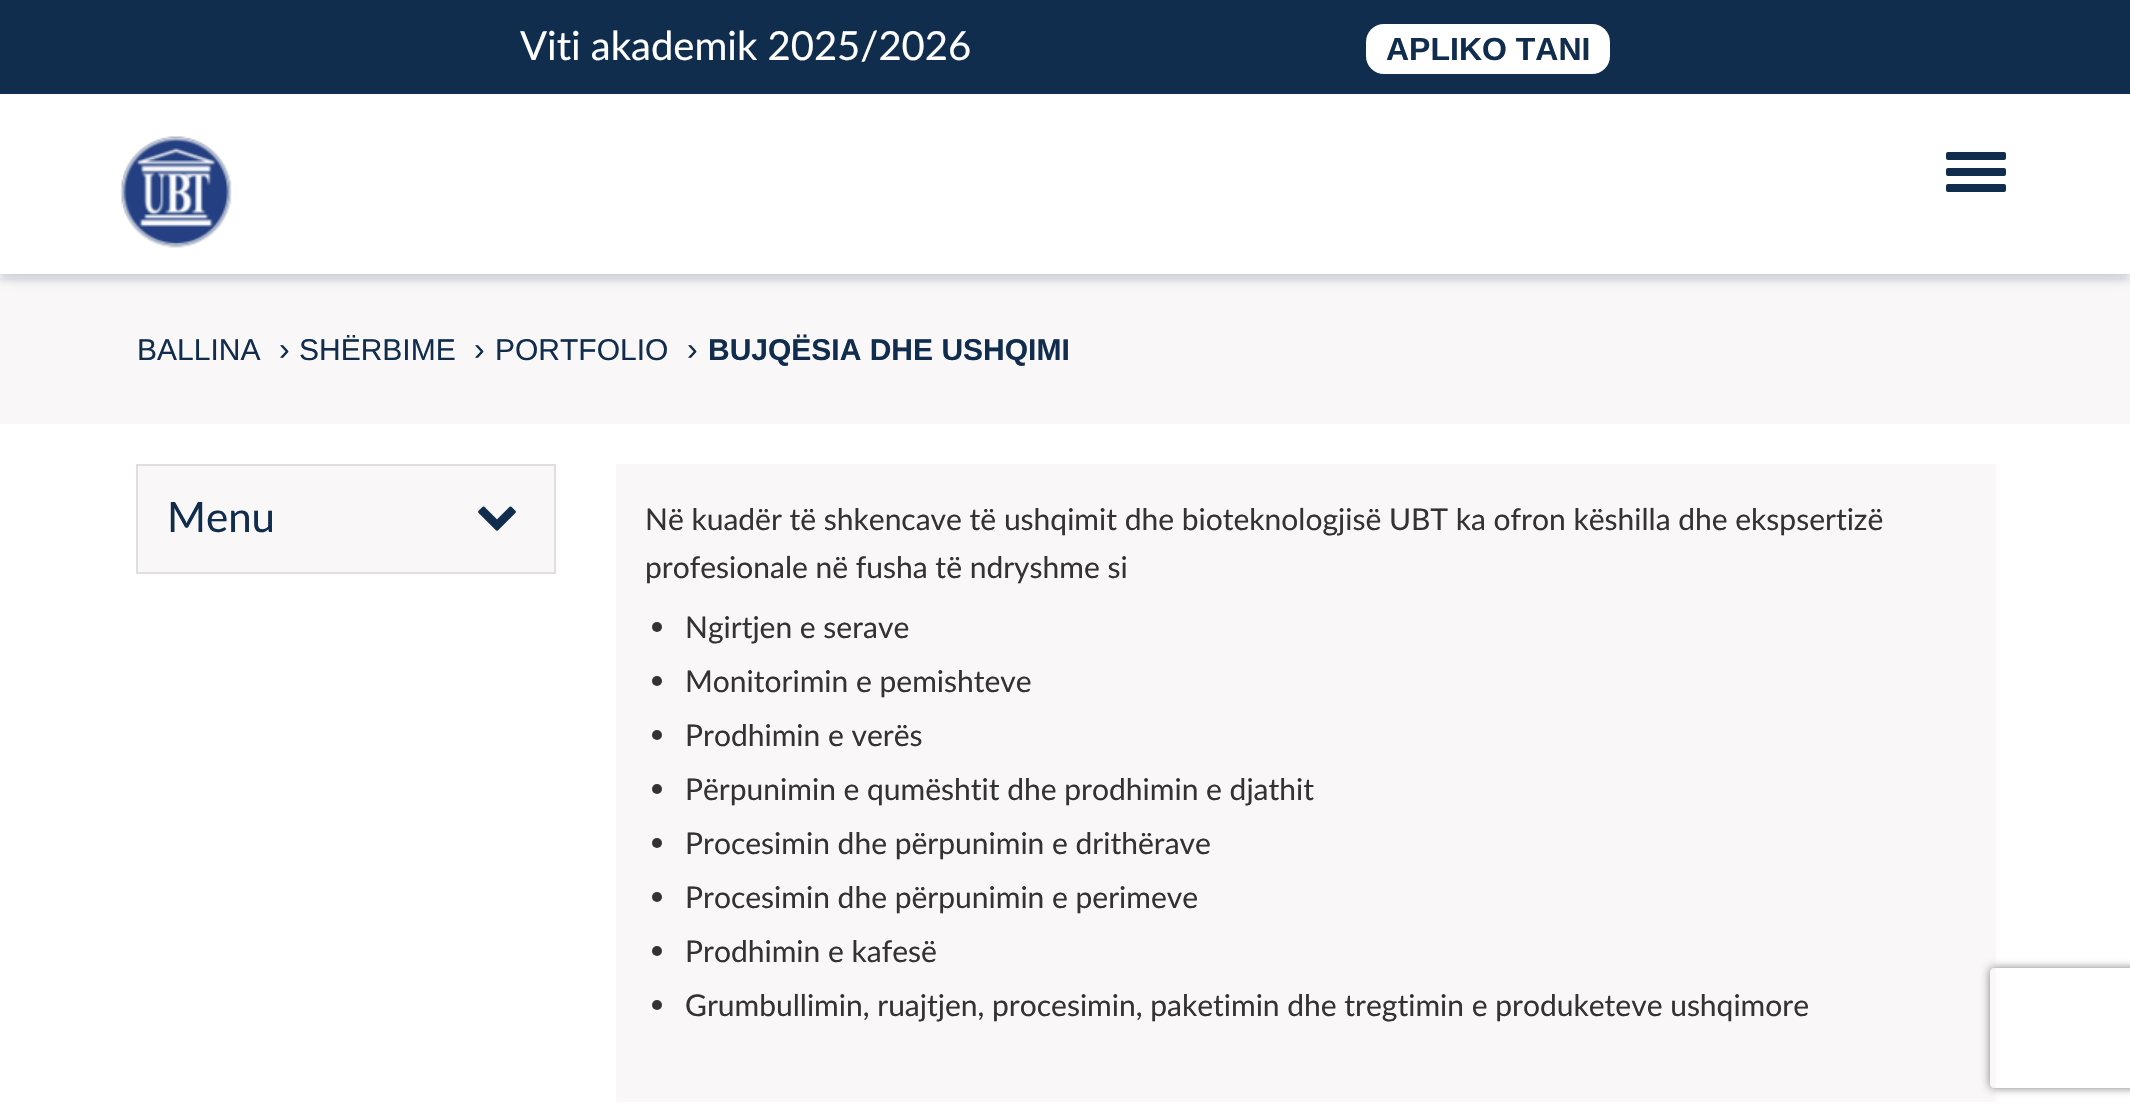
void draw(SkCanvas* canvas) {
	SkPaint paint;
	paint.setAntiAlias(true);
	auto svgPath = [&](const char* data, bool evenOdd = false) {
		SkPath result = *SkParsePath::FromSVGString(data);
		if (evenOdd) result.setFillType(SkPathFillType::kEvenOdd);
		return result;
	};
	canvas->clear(0xffffffff);
	paint.setColor(0xfff9f7f7);
	canvas->drawRect(SkRect::MakeXYWH(0, 278, 2130, 146), paint);
	paint.setColor(0x26122e4f);
	paint.setMaskFilter(SkMaskFilter::MakeBlur(kNormal_SkBlurStyle, 3));
	canvas->drawRect(SkRect::MakeXYWH(0, 6, 2130, 274), paint);
	paint.setMaskFilter(nullptr);
	paint.setMaskFilter(SkMaskFilter::MakeBlur(kNormal_SkBlurStyle, 10));
	canvas->drawRect(SkRect::MakeXYWH(0, 0, 2130, 274), paint);
	paint.setMaskFilter(nullptr);
	paint.setColor(0xffffffff);
	canvas->drawRect(SkRect::MakeXYWH(0, 94, 2130, 180), paint);
	paint.setColor(0xff112d4e);
	canvas->drawRect(SkRect::MakeXYWH(0, 0, 2130, 94), paint);
	SkFont f1(fontMgr->matchFamilyStyle("Lato", SkFontStyle::Normal()), 40);
	f1.setSubpixel(true);
	paint.setColor(0xffffffff);
	canvas->drawString("Viti akademik 2025/2026", 520, 60, f1, paint);
	canvas->drawRoundRect(SkRect::MakeXYWH(1366, 24, 244, 50), 18, 18, paint);
	SkFont f2(fontMgr->matchFamilyStyle("Liberation Sans", SkFontStyle::Bold()), 32);
	f2.setSubpixel(true);
	paint.setColor(0xff112d4e);
	canvas->drawString("APLIKO TANI", 1386, 60, f2, paint);
	canvas->drawImageRect(SkImages::DeferredFromEncodedData(SkData::MakeFromFileName("img1.png")), SkRect::MakeXYWH(120, 136, 112, 112), SkSamplingOptions());
	canvas->drawRoundRect(SkRect::MakeXYWH(1946, 152, 60, 8), 2, 2, paint);
	canvas->drawRoundRect(SkRect::MakeXYWH(1946, 168, 60, 8), 2, 2, paint);
	canvas->drawRoundRect(SkRect::MakeXYWH(1946, 184, 60, 8), 2, 2, paint);
	SkFont f3(fontMgr->matchFamilyStyle("Liberation Sans", SkFontStyle::Normal()), 30);
	f3.setSubpixel(true);
	canvas->drawString("BALLINA", 137, 360, f3, paint);
	SkFont f4(fontMgr->matchFamilyStyle("Liberation Sans", SkFontStyle::Normal()), 32);
	f4.setSubpixel(true);
	canvas->drawString("›", 279, 360, f4, paint);
	canvas->drawString("SHËRBIME", 299, 360, f3, paint);
	canvas->drawString("›", 474, 360, f4, paint);
	canvas->drawString("PORTFOLIO", 495, 360, f3, paint);
	canvas->drawString("›", 687, 360, f4, paint);
	SkFont f5(fontMgr->matchFamilyStyle("Liberation Sans", SkFontStyle::Bold()), 30);
	f5.setSubpixel(true);
	canvas->drawString("BUJQËSIA DHE USHQIMI", 708, 360, f5, paint);
	paint.setColor(0xfff9f7f7);
	canvas->drawRect(SkRect::MakeXYWH(137, 465, 418, 108), paint);
	paint.setStroke(true);
	paint.setStrokeWidth(2);
	paint.setColor(0xffdfdfdf);
	canvas->drawRect(SkRect::MakeXYWH(137, 465, 418, 108), paint);
	SkFont f6(fontMgr->matchFamilyStyle("Lato", SkFontStyle::Normal()), 42);
	f6.setSubpixel(true);
	paint.setStroke(false);
	paint.setColor(0xff112d4e);
	canvas->drawString("Menu", 167, 532, f6, paint);
	canvas->drawImageRect(SkImages::DeferredFromEncodedData(SkData::MakeFromFileName("img2.png")), SkRect::MakeXYWH(478, 506, 38, 25), SkSamplingOptions());
	paint.setColor(0xfff9f7f7);
	canvas->drawRect(SkRect::MakeXYWH(616, 464, 1380, 638), paint);
	SkFont f7(fontMgr->matchFamilyStyle("Lato", SkFontStyle::Normal()), 30);
	f7.setSubpixel(true);
	paint.setColor(0xff333333);
	canvas->drawString("Në kuadër të shkencave të ushqimit dhe bioteknologjisë UBT ka ofron këshilla dhe ekspsertizë", 645, 530, f7, paint);
	canvas->drawString("profesionale në fusha të ndryshme si", 645, 578, f7, paint);
	canvas->drawCircle(657, 627, 5, paint);
	canvas->drawString("Ngirtjen e serave", 685, 638, f7, paint);
	canvas->drawCircle(657, 681, 5, paint);
	canvas->drawString("Monitorimin e pemishteve", 685, 692, f7, paint);
	canvas->drawCircle(657, 735, 5, paint);
	canvas->drawString("Prodhimin e verës", 685, 746, f7, paint);
	canvas->drawCircle(657, 789, 5, paint);
	canvas->drawString("Përpunimin e qumështit dhe prodhimin e djathit", 685, 800, f7, paint);
	canvas->drawCircle(657, 843, 5, paint);
	canvas->drawString("Procesimin dhe përpunimin e drithërave", 685, 854, f7, paint);
	canvas->drawCircle(657, 897, 5, paint);
	canvas->drawString("Procesimin dhe përpunimin e perimeve", 685, 908, f7, paint);
	canvas->drawCircle(657, 951, 5, paint);
	canvas->drawString("Prodhimin e kafesë", 685, 962, f7, paint);
	canvas->drawCircle(657, 1005, 5, paint);
	canvas->drawString("Grumbullimin, ruajtjen, procesimin, paketimin dhe tregtimin e produketeve ushqimore", 685, 1016, f7, paint);
	canvas->save();
	canvas->clipPath(svgPath("M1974 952H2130V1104H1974ZM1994 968H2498C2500 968 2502 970 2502 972V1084C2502 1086 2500 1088 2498 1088H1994C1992 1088 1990 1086 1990 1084V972C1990 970 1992 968 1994 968Z", true), true);
	paint.setColor(0xff808080);
	paint.setMaskFilter(SkMaskFilter::MakeBlur(kNormal_SkBlurStyle, 5));
	canvas->drawRoundRect(SkRect::MakeXYWH(1990, 968, 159, 120), 4, 4, paint);
	paint.setMaskFilter(nullptr);
	canvas->restore();
}
